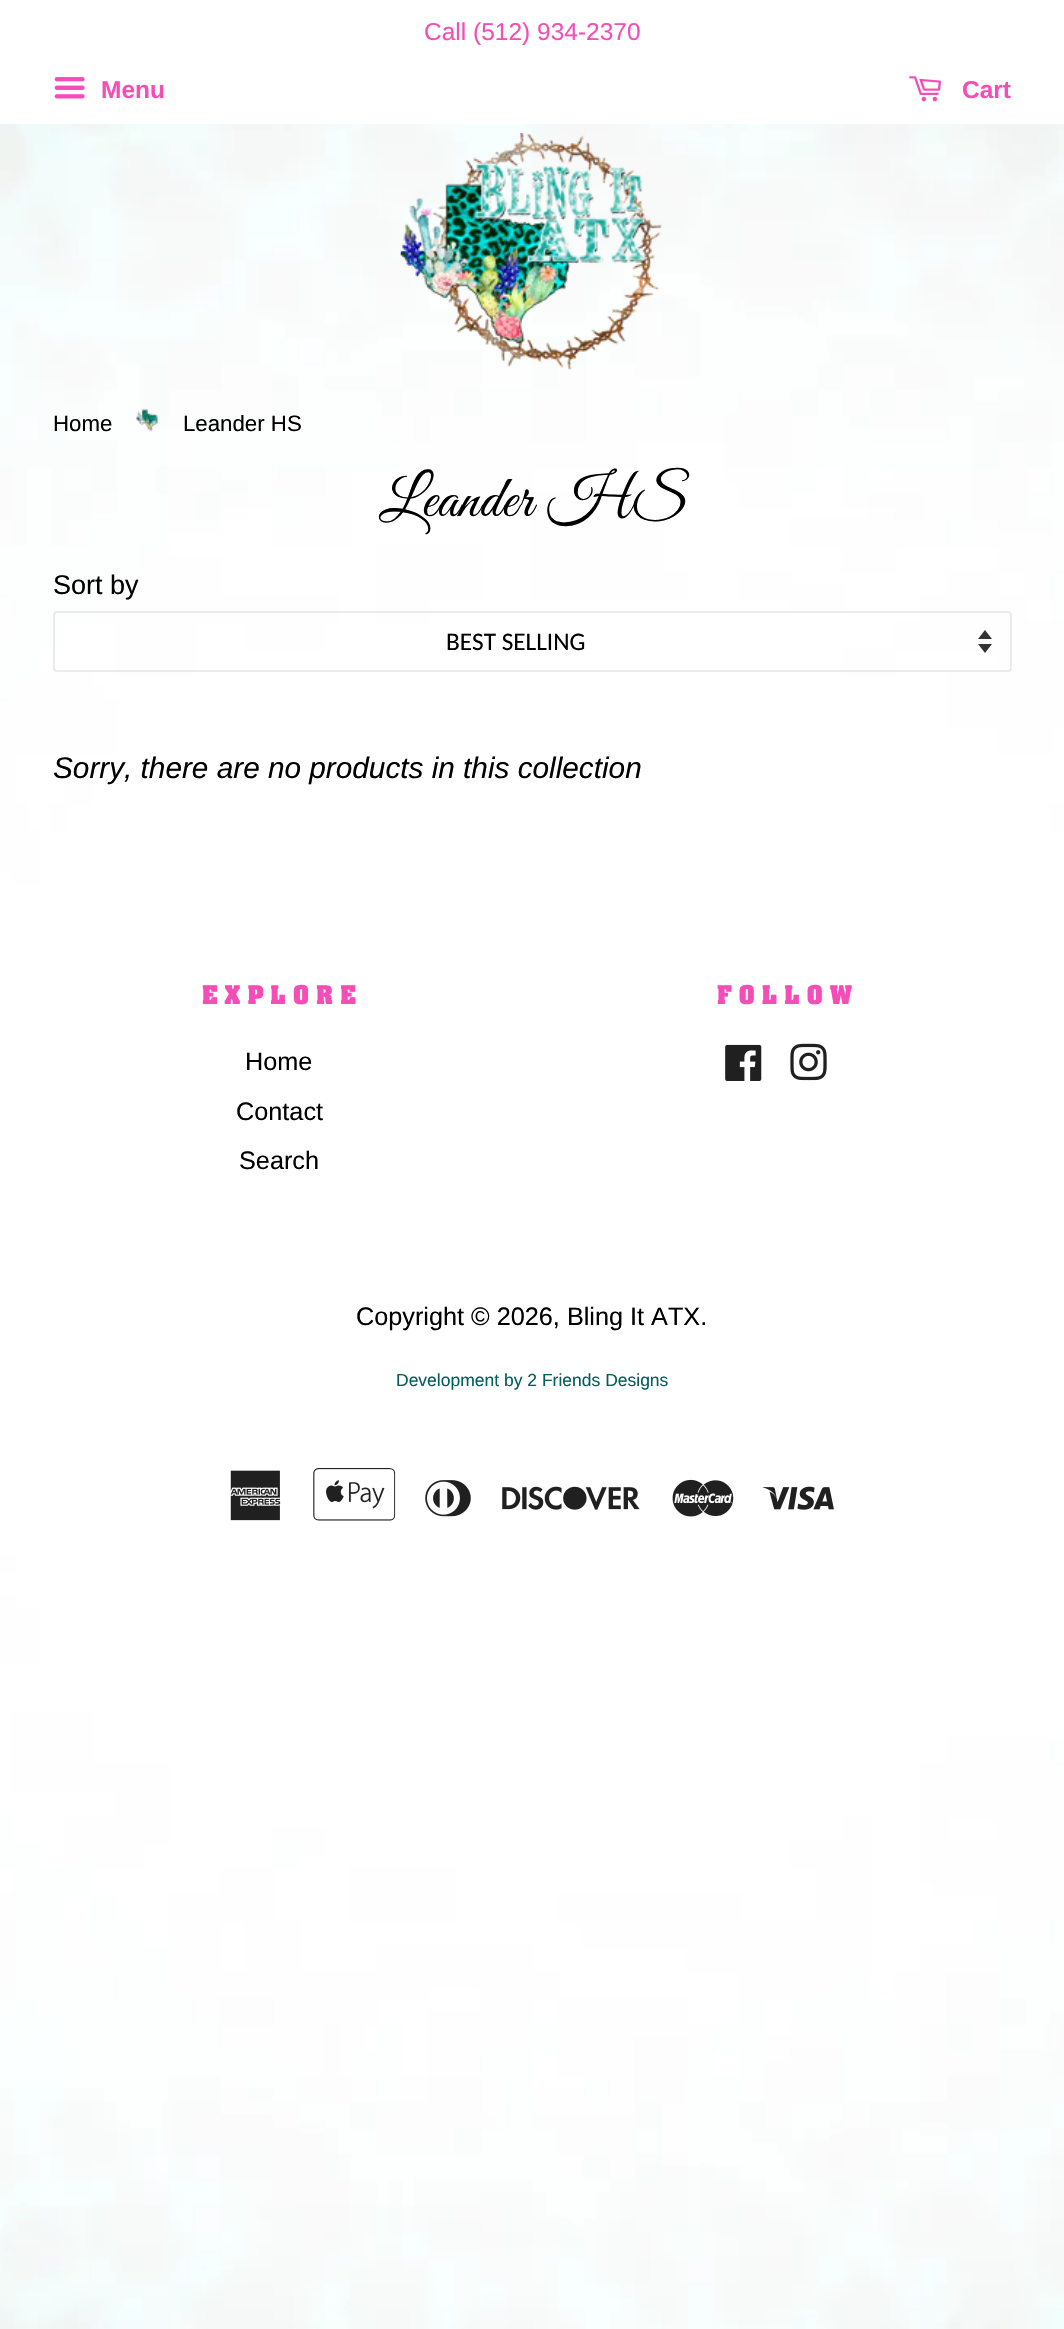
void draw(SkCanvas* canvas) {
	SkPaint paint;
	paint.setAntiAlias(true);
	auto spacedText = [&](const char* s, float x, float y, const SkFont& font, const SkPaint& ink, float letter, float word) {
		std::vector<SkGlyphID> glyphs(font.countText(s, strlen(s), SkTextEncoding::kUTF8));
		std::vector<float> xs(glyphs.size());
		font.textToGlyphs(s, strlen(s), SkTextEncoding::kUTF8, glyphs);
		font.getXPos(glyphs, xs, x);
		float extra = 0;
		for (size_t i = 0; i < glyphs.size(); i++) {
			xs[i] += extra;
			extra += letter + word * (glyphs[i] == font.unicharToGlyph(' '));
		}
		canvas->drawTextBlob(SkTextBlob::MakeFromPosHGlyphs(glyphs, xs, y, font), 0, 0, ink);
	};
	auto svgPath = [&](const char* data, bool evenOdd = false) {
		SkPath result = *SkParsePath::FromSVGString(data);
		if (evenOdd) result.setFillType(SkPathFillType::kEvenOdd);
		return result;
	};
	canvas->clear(0xffffffff);
	canvas->drawImageRect(SkImages::DeferredFromEncodedData(SkData::MakeFromFileName("img1.png")), SkRect::MakeXYWH(0, 124, 1064, 2205), SkSamplingOptions());
	SkFont f1(fontMgr->matchFamilyStyle("Liberation Sans", SkFontStyle::Normal()), 24.5);
	f1.setSubpixel(true);
	paint.setColor(0xfff54db8);
	canvas->drawString("Call (512) 934-2370", 424, 40, f1, paint);
	canvas->drawImageRect(SkImages::DeferredFromEncodedData(SkData::MakeFromFileName("img2.png")), SkRect::MakeXYWH(54, 77, 31, 22), SkSamplingOptions());
	SkFont f2(fontMgr->matchFamilyStyle("Liberation Sans", SkFontStyle::Bold()), 24.5);
	f2.setSubpixel(true);
	canvas->drawString("Menu", 101, 98, f2, paint);
	canvas->drawImageRect(SkImages::DeferredFromEncodedData(SkData::MakeFromFileName("img3.png")), SkRect::MakeXYWH(909, 76, 32, 26), SkSamplingOptions());
	canvas->drawString("Cart", 962, 98, f2, paint);
	canvas->drawImageRect(SkImages::DeferredFromEncodedData(SkData::MakeFromFileName("img4.png")), SkRect::MakeXYWH(400, 133, 262, 237), SkSamplingOptions());
	SkFont f3(fontMgr->matchFamilyStyle("Liberation Sans", SkFontStyle::Normal()), 22.25);
	f3.setSubpixel(true);
	paint.setColor(0xff000000);
	canvas->drawString("Home", 53, 431, f3, paint);
	canvas->drawImageRect(SkImages::DeferredFromEncodedData(SkData::MakeFromFileName("img5.png")), SkRect::MakeXYWH(136, 409, 22, 22), SkSamplingOptions());
	canvas->drawString("Leander HS", 183, 431, f3, paint);
	SkFont f4(fontMgr->matchFamilyStyle("Great Vibes", SkFontStyle::Normal()), 59);
	f4.setSubpixel(true);
	spacedText("Leander HS", 379, 516, f4, paint, 0.5, 4);
	SkFont f5(fontMgr->matchFamilyStyle("Liberation Sans", SkFontStyle::Normal()), 27);
	f5.setSubpixel(true);
	canvas->drawString("Sort by", 53, 594, f5, paint);
	paint.setColor(0xff333333);
	canvas->drawPath(svgPath("M978 644L985 653L992 644ZM985 630L978 639H992Z"), paint);
	paint.setStroke(true);
	paint.setStrokeWidth(2);
	paint.setColor(0xffebebeb);
	canvas->drawRoundRect(SkRect::MakeXYWH(54, 612, 957, 59), 3, 3, paint);
	SkFont f6(fontMgr->matchFamilyStyle("Carlito", SkFontStyle::Normal()), 25.25);
	f6.setSubpixel(true);
	paint.setStroke(false);
	paint.setColor(0xff000000);
	canvas->drawString("BEST SELLING", 446, 650, f6, paint);
	SkFont f7(fontMgr->matchFamilyStyle("Liberation Sans", SkFontStyle::Italic()), 29.75);
	f7.setSubpixel(true);
	canvas->drawString("Sorry, there are no products in this collection", 53, 778, f7, paint);
	SkFont f8(fontMgr->matchFamilyStyle("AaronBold", SkFontStyle::Bold()), 22);
	f8.setSubpixel(true);
	paint.setColor(0xfff54db8);
	canvas->drawString("E X P L O R E", 202, 1004, f8, paint);
	SkFont f9(fontMgr->matchFamilyStyle("Liberation Sans", SkFontStyle::Normal()), 25.25);
	f9.setSubpixel(true);
	paint.setColor(0xff000000);
	canvas->drawString("Home", 245, 1070, f9, paint);
	canvas->drawString("Contact", 236, 1120, f9, paint);
	canvas->drawString("Search", 239, 1169, f9, paint);
	paint.setColor(0xfff54db8);
	canvas->drawString("F O L L O W", 717, 1004, f8, paint);
	canvas->drawImageRect(SkImages::DeferredFromEncodedData(SkData::MakeFromFileName("img6.png")), SkRect::MakeXYWH(725, 1044, 37, 37), SkSamplingOptions());
	canvas->drawImageRect(SkImages::DeferredFromEncodedData(SkData::MakeFromFileName("img7.png")), SkRect::MakeXYWH(790, 1043, 37, 38), SkSamplingOptions());
	paint.setColor(0xff000000);
	canvas->drawString("Copyright © 2026, Bling It ATX.", 356, 1325, f9, paint);
	SkFont f10(fontMgr->matchFamilyStyle("Liberation Sans", SkFontStyle::Normal()), 17.5);
	f10.setSubpixel(true);
	paint.setColor(0xff045d5d);
	canvas->drawString("Development by 2 Friends Designs", 396, 1386, f10, paint);
	canvas->drawImageRect(SkImages::DeferredFromEncodedData(SkData::MakeFromFileName("img8.png")), SkRect::MakeXYWH(230, 1470, 51, 51), SkSamplingOptions());
	canvas->drawImageRect(SkImages::DeferredFromEncodedData(SkData::MakeFromFileName("img9.png")), SkRect::MakeXYWH(313, 1468, 83, 53), SkSamplingOptions());
	canvas->drawImageRect(SkImages::DeferredFromEncodedData(SkData::MakeFromFileName("img10.png")), SkRect::MakeXYWH(425, 1480, 46, 37), SkSamplingOptions());
	canvas->drawImageRect(SkImages::DeferredFromEncodedData(SkData::MakeFromFileName("img11.png")), SkRect::MakeXYWH(502, 1486, 138, 24), SkSamplingOptions());
	canvas->drawImageRect(SkImages::DeferredFromEncodedData(SkData::MakeFromFileName("img12.png")), SkRect::MakeXYWH(672, 1479, 62, 38), SkSamplingOptions());
	canvas->drawImageRect(SkImages::DeferredFromEncodedData(SkData::MakeFromFileName("img13.png")), SkRect::MakeXYWH(763, 1486, 71, 24), SkSamplingOptions());
}
